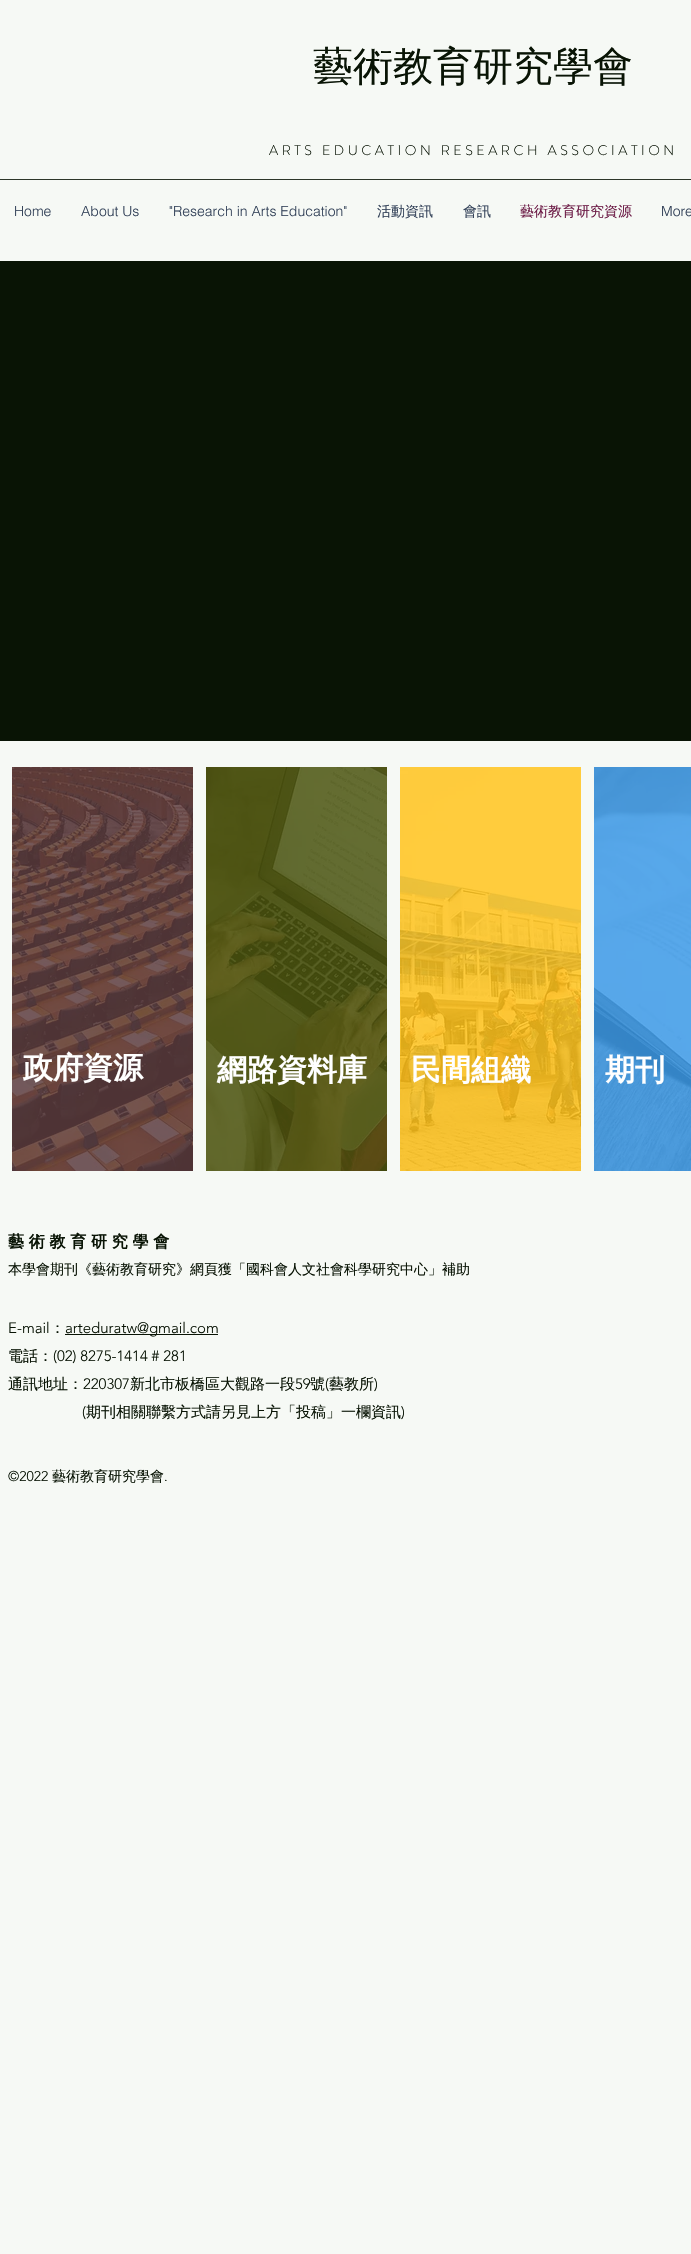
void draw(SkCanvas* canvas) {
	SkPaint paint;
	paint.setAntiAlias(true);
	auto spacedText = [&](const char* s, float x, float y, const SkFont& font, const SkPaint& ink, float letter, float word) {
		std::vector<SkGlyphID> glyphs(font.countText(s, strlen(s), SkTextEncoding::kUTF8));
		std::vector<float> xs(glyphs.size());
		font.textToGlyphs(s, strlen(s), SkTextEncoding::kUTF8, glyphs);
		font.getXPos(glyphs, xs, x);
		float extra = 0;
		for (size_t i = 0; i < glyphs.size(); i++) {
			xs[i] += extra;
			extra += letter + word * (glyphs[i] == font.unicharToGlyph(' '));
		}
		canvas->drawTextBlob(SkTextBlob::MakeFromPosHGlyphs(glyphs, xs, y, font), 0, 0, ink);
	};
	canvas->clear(0xfff6f9f5);
	SkFont f1(fontMgr->matchFamilyStyle("WenQuanYi Zen Hei", SkFontStyle(500, SkFontStyle::kNormal_Width, SkFontStyle::kUpright_Slant)), 40);
	f1.setSubpixel(true);
	paint.setColor(0xff091405);
	canvas->drawString("藝術教育研究學會", 313, 80, f1, paint);
	SkFont f2(fontMgr->matchFamilyStyle("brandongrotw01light", SkFontStyle(300, SkFontStyle::kNormal_Width, SkFontStyle::kUpright_Slant)), 14);
	f2.setSubpixel(true);
	spacedText("ARTS EDUCATION RESEARCH ASSOCIATION", 269, 155, f2, paint, 3.5, 0);
	paint.setColor(0xff2d3629);
	canvas->drawRect(SkRect::MakeXYWH(0, 179, 691, 1), paint);
	SkFont f3(fontMgr->matchFamilyStyle("helvetica", SkFontStyle(300, SkFontStyle::kNormal_Width, SkFontStyle::kUpright_Slant)), 14);
	f3.setSubpixel(true);
	paint.setColor(0xff324158);
	canvas->drawString("Home", 14, 216, f3, paint);
	canvas->drawString("About Us", 81, 216, f3, paint);
	canvas->drawString("\"Research in Arts Education\"", 169, 216, f3, paint);
	SkFont f4(fontMgr->matchFamilyStyle("WenQuanYi Zen Hei", SkFontStyle(500, SkFontStyle::kNormal_Width, SkFontStyle::kUpright_Slant)), 14);
	f4.setSubpixel(true);
	canvas->drawString("活動資訊", 377, 216, f4, paint);
	canvas->drawString("會訊", 463, 216, f4, paint);
	paint.setColor(0xff6b1a45);
	canvas->drawString("藝術教育研究資源", 520, 216, f4, paint);
	paint.setColor(0xff324158);
	canvas->drawString("More", 661, 216, f3, paint);
	paint.setColor(0xff091405);
	canvas->drawRect(SkRect::MakeXYWH(0, 261, 691, 480), paint);
	paint.setColor(0xff5c3c3e);
	canvas->drawRect(SkRect::MakeXYWH(12, 767, 181, 404), paint);
	canvas->drawImageRect(SkImages::DeferredFromEncodedData(SkData::MakeFromFileName("img1.png")), SkRect::MakeXYWH(12, 767, 181, 404), SkSamplingOptions());
	SkFont f5(fontMgr->matchFamilyStyle("WenQuanYi Zen Hei", SkFontStyle::Bold()), 30);
	f5.setSubpixel(true);
	paint.setColor(0xffffffff);
	canvas->drawString("政府資源", 23, 1078, f5, paint);
	paint.setColor(0xff4b540f);
	canvas->drawRect(SkRect::MakeXYWH(206, 767, 181, 404), paint);
	canvas->drawImageRect(SkImages::DeferredFromEncodedData(SkData::MakeFromFileName("img2.png")), SkRect::MakeXYWH(206, 767, 181, 404), SkSamplingOptions());
	paint.setColor(0xffffffff);
	canvas->drawString("網路資料庫", 217, 1080, f5, paint);
	paint.setColor(0xffffc31b);
	canvas->drawRect(SkRect::MakeXYWH(400, 767, 181, 404), paint);
	canvas->drawImageRect(SkImages::DeferredFromEncodedData(SkData::MakeFromFileName("img3.png")), SkRect::MakeXYWH(400, 767, 181, 404), SkSamplingOptions());
	paint.setColor(0xffffffff);
	canvas->drawString("民間組織", 411, 1080, f5, paint);
	paint.setColor(0xff3d9be9);
	canvas->drawRect(SkRect::MakeXYWH(594, 767, 97, 404), paint);
	canvas->drawImageRect(SkImages::DeferredFromEncodedData(SkData::MakeFromFileName("img4.png")), SkRect::MakeXYWH(594, 767, 97, 404), SkSamplingOptions());
	paint.setColor(0xffffffff);
	canvas->drawString("期刊", 605, 1080, f5, paint);
	SkFont f6(fontMgr->matchFamilyStyle("WenQuanYi Zen Hei", SkFontStyle::Bold()), 16);
	f6.setSubpixel(true);
	paint.setColor(0xff091405);
	spacedText("藝術教育研究學會", 8, 1247, f6, paint, 4.75, 0);
	canvas->drawString("本學會期刊《藝術教育研究》網頁獲「國科會人文社會科學研究中心」補助", 8, 1274, f4, paint);
	SkFont f7(fontMgr->matchFamilyStyle("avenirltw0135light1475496", SkFontStyle(300, SkFontStyle::kNormal_Width, SkFontStyle::kUpright_Slant)), 15);
	f7.setSubpixel(true);
	canvas->drawString("E-mail", 8, 1333, f7, paint);
	SkFont f8(fontMgr->matchFamilyStyle("WenQuanYi Zen Hei", SkFontStyle(500, SkFontStyle::kNormal_Width, SkFontStyle::kUpright_Slant)), 15);
	f8.setSubpixel(true);
	canvas->drawString("：", 50, 1333, f8, paint);
	canvas->drawRect(SkRect::MakeXYWH(65, 1334, 153, 1), paint);
	canvas->drawString("arteduratw@gmail.com", 65, 1333, f7, paint);
	canvas->drawString("電話：", 8, 1361, f8, paint);
	canvas->drawString("(02) 8275-1414 # 281", 53, 1361, f7, paint);
	canvas->drawString("通訊地址：", 8, 1389, f8, paint);
	canvas->drawString("220307", 83, 1389, f7, paint);
	canvas->drawString("新北市板橋區大觀路一段", 130, 1389, f8, paint);
	canvas->drawString("59", 295, 1389, f7, paint);
	canvas->drawString("號", 310, 1389, f8, paint);
	canvas->drawString("(", 325, 1389, f7, paint);
	canvas->drawString("藝教所", 329, 1389, f8, paint);
	canvas->drawString(")", 374, 1389, f7, paint);
	canvas->drawString("(", 82, 1417, f7, paint);
	canvas->drawString("期刊相關聯繫方式請另見上方「投稿」一欄資訊", 86, 1417, f8, paint);
	canvas->drawString(")", 401, 1417, f7, paint);
	SkFont f9(fontMgr->matchFamilyStyle("avenirltw0135light1475496", SkFontStyle(300, SkFontStyle::kNormal_Width, SkFontStyle::kUpright_Slant)), 14);
	f9.setSubpixel(true);
	canvas->drawString("©2022", 8, 1481, f9, paint);
	canvas->drawString("藝術教育研究學會", 52, 1481, f4, paint);
	canvas->drawString(".", 164, 1481, f9, paint);
}
